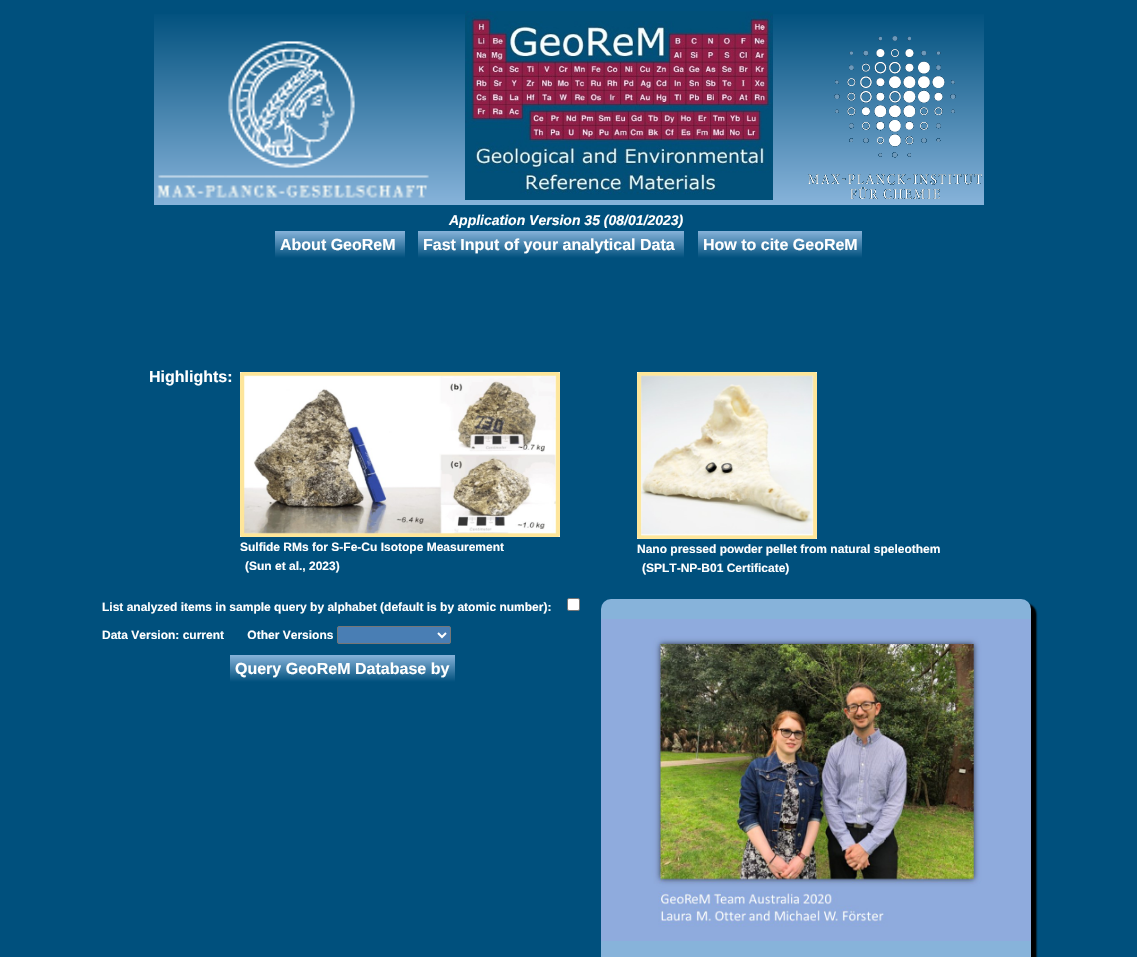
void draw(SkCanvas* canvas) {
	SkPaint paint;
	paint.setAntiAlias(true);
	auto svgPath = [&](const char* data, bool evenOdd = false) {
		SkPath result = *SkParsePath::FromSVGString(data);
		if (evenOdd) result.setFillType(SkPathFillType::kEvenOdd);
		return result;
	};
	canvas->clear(0xff00507d);
	{
		const SkColor colors[] = {0xff00507d, 0xff87b3da};
		const float stops[] = {0, 1};
		const SkPoint ends[] = {{154, 10}, {154, 205}};
		paint.setShader(SkGradientShader::MakeLinear(ends, colors, stops, 2, SkTileMode::kClamp));
		paint.setAlpha(255);
	}
	canvas->drawRect(SkRect::MakeXYWH(154, 14, 830, 191), paint);
	canvas->drawImageRect(SkImages::DeferredFromEncodedData(SkData::MakeFromFileName("img1.png")), SkRect::MakeXYWH(156, 41, 273, 157), SkSamplingOptions());
	canvas->drawImageRect(SkImages::DeferredFromEncodedData(SkData::MakeFromFileName("img2.png")), SkRect::MakeXYWH(465, 11, 308, 189), SkSamplingOptions());
	canvas->drawImageRect(SkImages::DeferredFromEncodedData(SkData::MakeFromFileName("img3.png")), SkRect::MakeXYWH(808, 36, 174, 163), SkSamplingOptions());
	SkFont f1(fontMgr->matchFamilyStyle("Liberation Sans", SkFontStyle::BoldItalic()), 14);
	f1.setSubpixel(true);
	paint.setShader(nullptr);
	paint.setColor(0xffffffff);
	canvas->drawString("Application Version 35 (08/01/2023)", 449, 225, f1, paint);
	{
		const SkColor colors[] = {0xff87b3da, 0xff00507d};
		const float stops[] = {0, 1};
		const SkPoint ends[] = {{275, 231}, {275, 258}};
		paint.setShader(SkGradientShader::MakeLinear(ends, colors, stops, 2, SkTileMode::kClamp));
		paint.setAlpha(255);
	}
	canvas->drawRect(SkRect::MakeXYWH(275, 231, 120, 27), paint);
	SkFont f2(fontMgr->matchFamilyStyle("Liberation Sans", SkFontStyle::Bold()), 16);
	f2.setSubpixel(true);
	paint.setShader(nullptr);
	paint.setColor(0xffffffff);
	canvas->drawString("About GeoReM", 280, 250, f2, paint);
	{
		const SkColor colors[] = {0xff87b3da, 0xff00507d};
		const float stops[] = {0, 1};
		const SkPoint ends[] = {{395, 231}, {395, 258}};
		paint.setShader(SkGradientShader::MakeLinear(ends, colors, stops, 2, SkTileMode::kClamp));
		paint.setAlpha(255);
	}
	canvas->drawRect(SkRect::MakeXYWH(395, 231, 10, 27), paint);
	{
		const SkColor colors[] = {0xff87b3da, 0xff00507d};
		const float stops[] = {0, 1};
		const SkPoint ends[] = {{418, 231}, {418, 258}};
		paint.setShader(SkGradientShader::MakeLinear(ends, colors, stops, 2, SkTileMode::kClamp));
		paint.setAlpha(255);
	}
	canvas->drawRect(SkRect::MakeXYWH(418, 231, 257, 27), paint);
	paint.setShader(nullptr);
	paint.setColor(0xffffffff);
	canvas->drawString("Fast Input of your analytical Data", 423, 250, f2, paint);
	{
		const SkColor colors[] = {0xff87b3da, 0xff00507d};
		const float stops[] = {0, 1};
		const SkPoint ends[] = {{675, 231}, {675, 258}};
		paint.setShader(SkGradientShader::MakeLinear(ends, colors, stops, 2, SkTileMode::kClamp));
		paint.setAlpha(255);
	}
	canvas->drawRect(SkRect::MakeXYWH(675, 231, 9, 27), paint);
	{
		const SkColor colors[] = {0xff87b3da, 0xff00507d};
		const float stops[] = {0, 1};
		const SkPoint ends[] = {{698, 231}, {698, 258}};
		paint.setShader(SkGradientShader::MakeLinear(ends, colors, stops, 2, SkTileMode::kClamp));
		paint.setAlpha(255);
	}
	canvas->drawRect(SkRect::MakeXYWH(698, 231, 164, 27), paint);
	paint.setShader(nullptr);
	paint.setColor(0xffffffff);
	canvas->drawString("How to cite GeoReM", 703, 250, f2, paint);
	canvas->drawString("Highlights:", 149, 382, f2, paint);
	canvas->drawImageRect(SkImages::DeferredFromEncodedData(SkData::MakeFromFileName("img4.png")), SkRect::MakeXYWH(240, 372, 320, 165), SkSamplingOptions());
	SkFont f3(fontMgr->matchFamilyStyle("Liberation Sans", SkFontStyle::Bold()), 12);
	f3.setSubpixel(true);
	canvas->drawString("Sulfide RMs for S-Fe-Cu Isotope Measurement", 240, 551, f3, paint);
	canvas->drawString("(Sun et al., 2023)", 245, 570, f3, paint);
	canvas->drawImageRect(SkImages::DeferredFromEncodedData(SkData::MakeFromFileName("img5.png")), SkRect::MakeXYWH(637, 372, 180, 167), SkSamplingOptions());
	canvas->drawString("Nano pressed powder pellet from natural speleothem", 637, 553, f3, paint);
	canvas->drawString("(SPLT-NP-B01 Certificate)", 642, 572, f3, paint);
	canvas->drawString("List analyzed items in sample query by alphabet (default is by atomic number):", 102, 611, f3, paint);
	canvas->drawRoundRect(SkRect::MakeXYWH(567.5, 598.5, 12, 12), 1.5, 1.5, paint);
	paint.setStroke(true);
	paint.setStrokeWidth(1);
	paint.setColor(0xff767676);
	canvas->drawRoundRect(SkRect::MakeXYWH(567.5, 598.5, 12, 12), 1.5, 1.5, paint);
	paint.setStroke(false);
	paint.setColor(0xffffffff);
	canvas->drawString("Data Version: current       Other Versions", 102, 639, f3, paint);
	paint.setColor(0xff497eb4);
	canvas->drawRoundRect(SkRect::MakeXYWH(337.5, 626.5, 113, 17), 1.5, 1.5, paint);
	paint.setStroke(true);
	paint.setColor(0xff767676);
	canvas->drawRoundRect(SkRect::MakeXYWH(337.5, 626.5, 113, 17), 1.5, 1.5, paint);
	paint.setStrokeWidth(2);
	paint.setColor(0xffffffff);
	canvas->drawPath(svgPath("M438 633L442 637L446 633"), paint);
	paint.setStroke(false);
	{
		const SkColor colors[] = {0xff87b3da, 0xff00507d};
		const float stops[] = {0, 1};
		const SkPoint ends[] = {{230, 655}, {230, 682}};
		paint.setShader(SkGradientShader::MakeLinear(ends, colors, stops, 2, SkTileMode::kClamp));
		paint.setAlpha(255);
	}
	canvas->drawRect(SkRect::MakeXYWH(230, 655, 225, 27), paint);
	paint.setShader(nullptr);
	paint.setColor(0xffffffff);
	canvas->drawString("Query GeoReM Database by", 235, 674, f2, paint);
	paint.setColor(0xff000000);
	paint.setMaskFilter(SkMaskFilter::MakeBlur(kNormal_SkBlurStyle, 1));
	canvas->drawRoundRect(SkRect::MakeXYWH(606, 604, 430, 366), 10, 10, paint);
	paint.setMaskFilter(nullptr);
	paint.setMaskFilter(SkMaskFilter::MakeBlur(kNormal_SkBlurStyle, 1));
	canvas->drawRoundRect(SkRect::MakeXYWH(606, 604, 430, 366), 10, 10, paint);
	paint.setMaskFilter(nullptr);
	paint.setColor(0xff87b3da);
	canvas->drawRoundRect(SkRect::MakeXYWH(601, 599, 430, 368), 10, 10, paint);
	canvas->drawImageRect(SkImages::DeferredFromEncodedData(SkData::MakeFromFileName("img6.png")), SkRect::MakeXYWH(601, 619, 430, 322), SkSamplingOptions());
}
